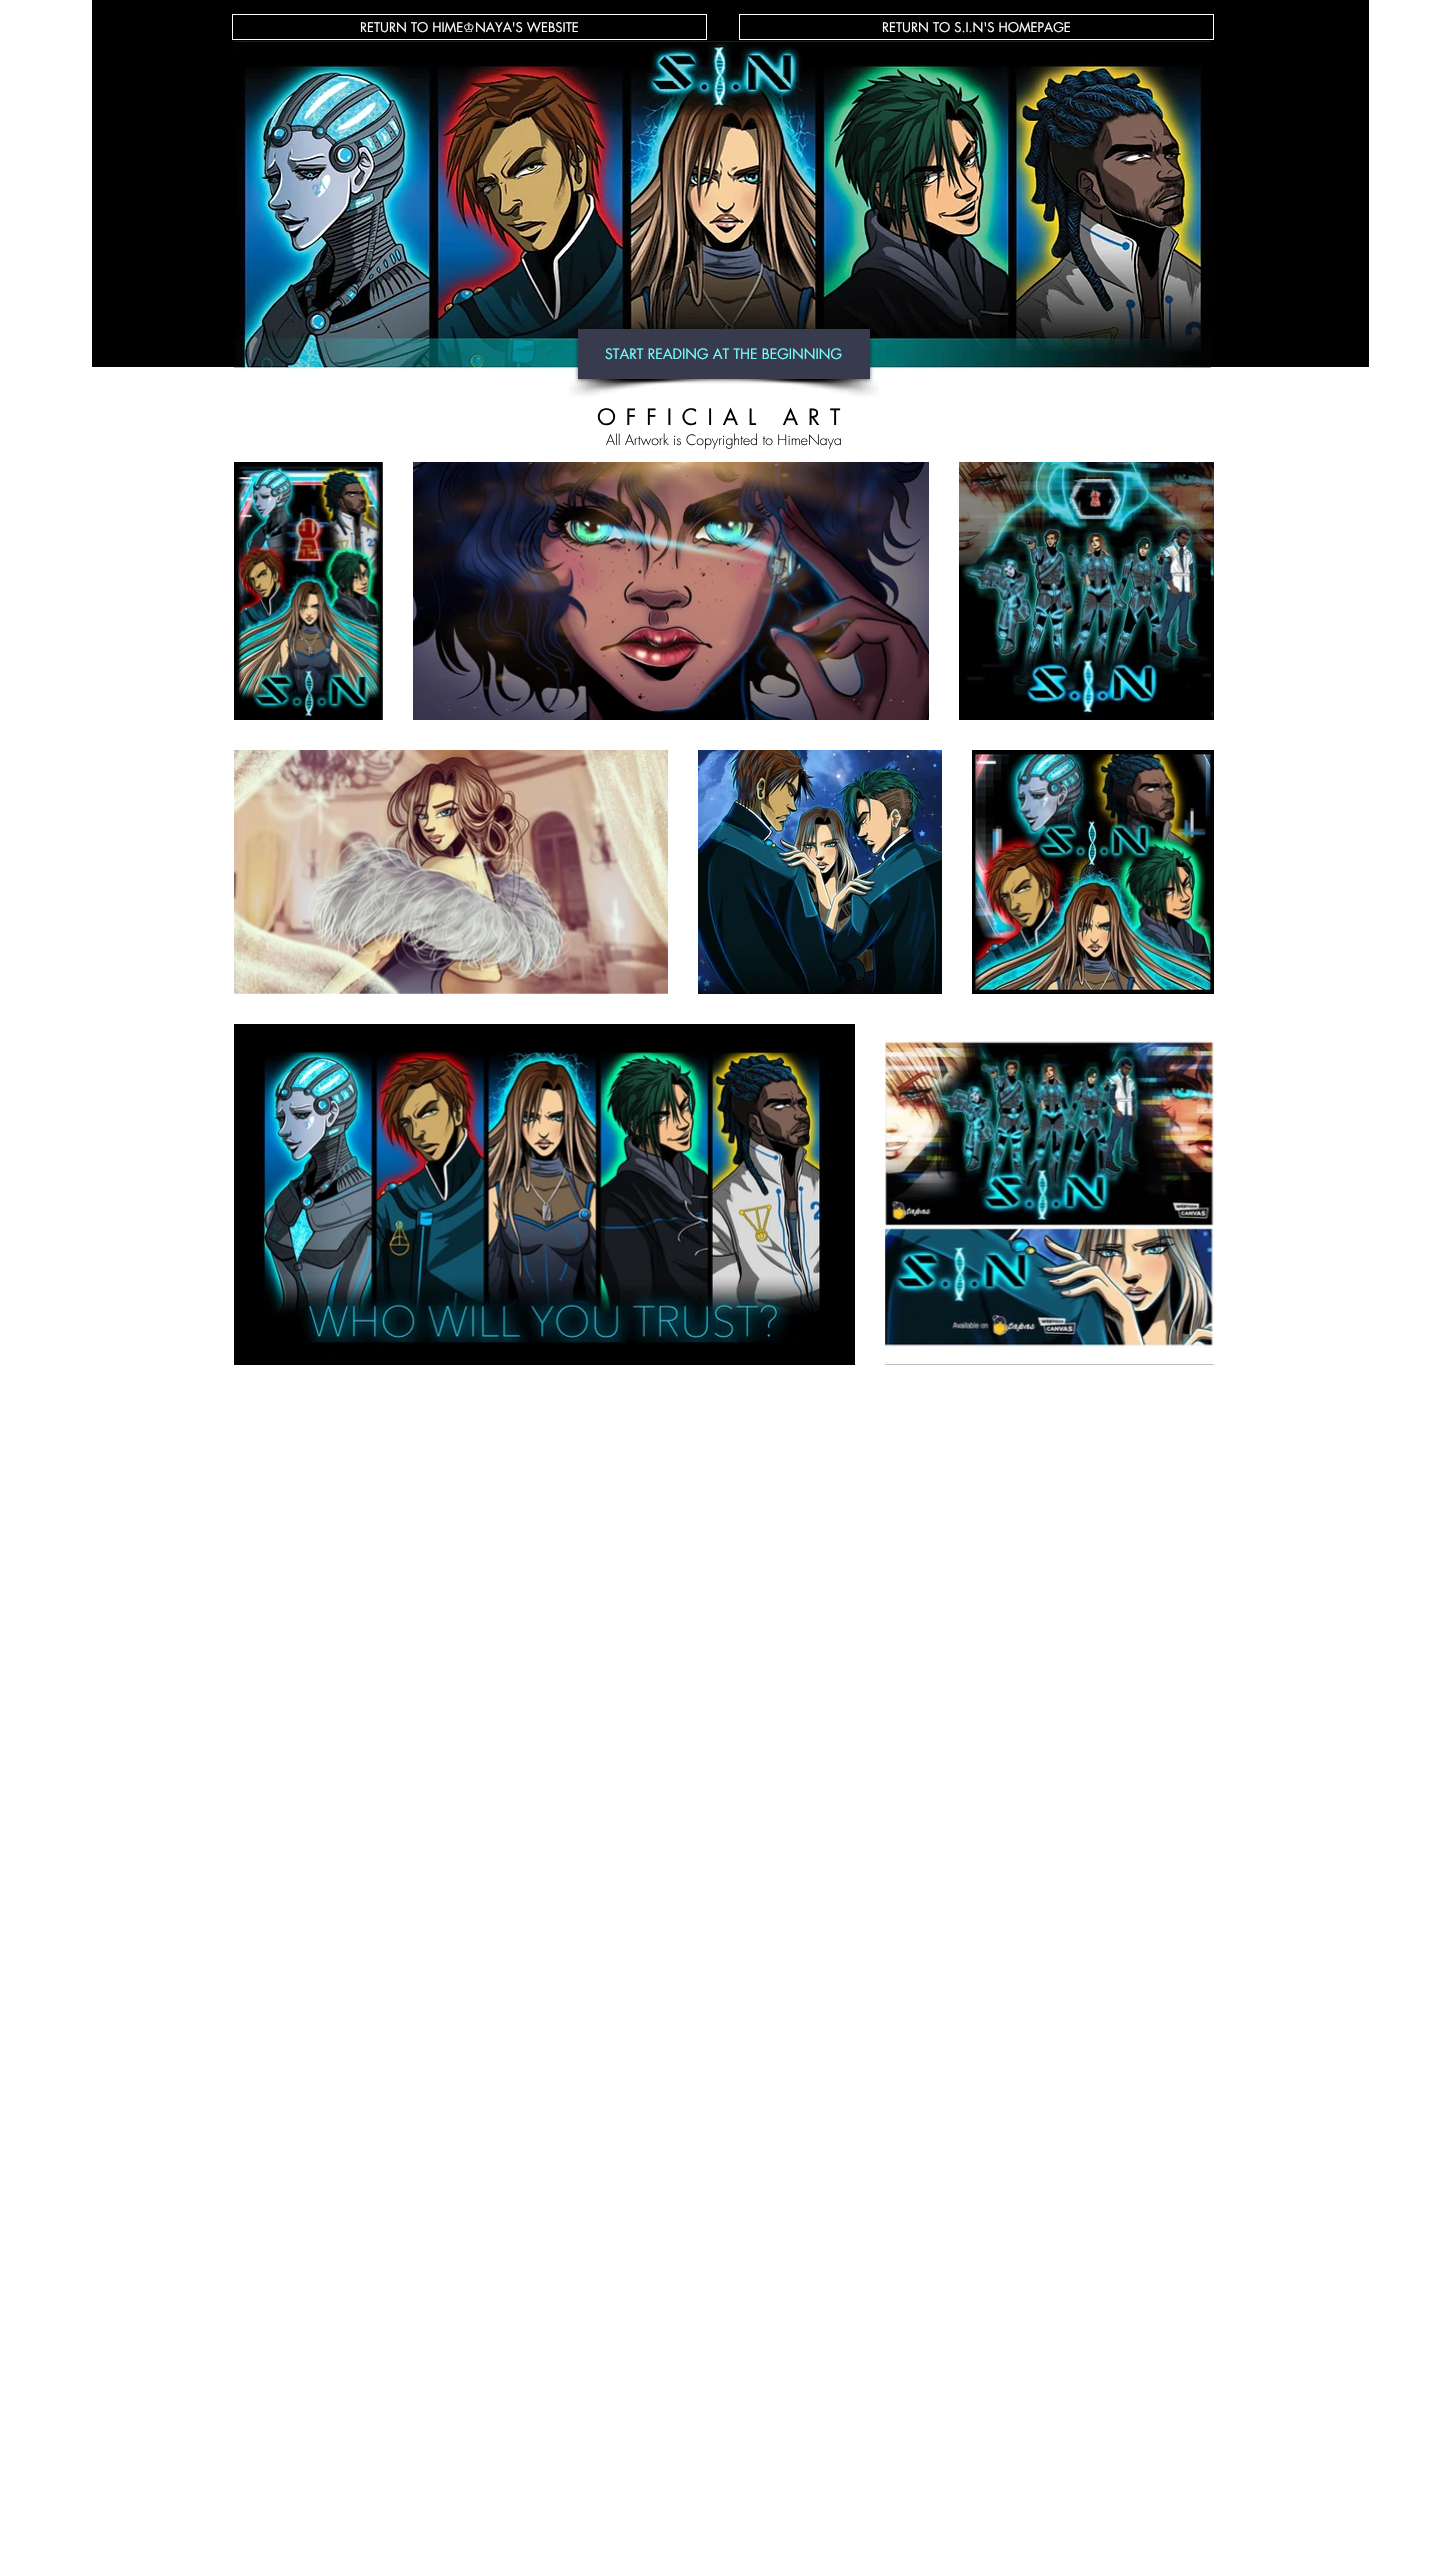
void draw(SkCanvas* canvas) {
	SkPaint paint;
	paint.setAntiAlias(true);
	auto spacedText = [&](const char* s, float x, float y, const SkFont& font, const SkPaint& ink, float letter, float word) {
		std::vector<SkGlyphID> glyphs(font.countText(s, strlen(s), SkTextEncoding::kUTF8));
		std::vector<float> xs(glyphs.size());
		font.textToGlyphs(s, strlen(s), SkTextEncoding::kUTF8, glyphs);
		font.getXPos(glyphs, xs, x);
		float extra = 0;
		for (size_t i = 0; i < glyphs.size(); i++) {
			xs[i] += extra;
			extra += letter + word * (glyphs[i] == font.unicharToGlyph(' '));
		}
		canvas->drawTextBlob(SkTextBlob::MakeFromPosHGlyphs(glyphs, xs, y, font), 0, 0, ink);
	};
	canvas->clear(0xffffffff);
	paint.setColor(0xff000000);
	canvas->drawRect(SkRect::MakeXYWH(92, 0, 1277, 367), paint);
	paint.setStroke(true);
	paint.setStrokeWidth(1);
	paint.setColor(0xffffffff);
	canvas->drawRect(SkRect::MakeXYWH(232.5, 14.5, 474, 25), paint);
	SkFont f1(fontMgr->matchFamilyStyle("futura", SkFontStyle::Normal()), 13);
	f1.setSubpixel(true);
	paint.setStroke(false);
	canvas->drawString("RETURN TO HIME", 360, 32, f1, paint);
	SkFont f2(fontMgr->matchFamilyStyle("DejaVu Sans", SkFontStyle::Normal()), 13);
	f2.setSubpixel(true);
	canvas->drawString("♔", 463, 32, f2, paint);
	canvas->drawString("NAYA'S WEBSITE", 475, 32, f1, paint);
	paint.setStroke(true);
	canvas->drawRect(SkRect::MakeXYWH(739.5, 14.5, 474, 25), paint);
	paint.setStroke(false);
	canvas->drawString("RETURN TO S.I.N'S HOMEPAGE", 882, 32, f1, paint);
	canvas->drawImageRect(SkImages::DeferredFromEncodedData(SkData::MakeFromFileName("img1.png")), SkRect::MakeXYWH(234, 41, 977, 329), SkSamplingOptions());
	canvas->drawImageRect(SkImages::DeferredFromEncodedData(SkData::MakeFromFileName("img2.png")), SkRect::MakeXYWH(569, 379, 154, 18), SkSamplingOptions());
	canvas->drawImageRect(SkImages::DeferredFromEncodedData(SkData::MakeFromFileName("img3.png")), SkRect::MakeXYWH(725, 379, 154, 18), SkSamplingOptions());
	paint.setColor(0x99000000);
	paint.setMaskFilter(SkMaskFilter::MakeBlur(kNormal_SkBlurStyle, 2));
	canvas->drawRect(SkRect::MakeXYWH(578, 330, 292, 50), paint);
	paint.setMaskFilter(nullptr);
	paint.setColor(0xff373b4d);
	canvas->drawRect(SkRect::MakeXYWH(578, 329, 292, 50), paint);
	SkFont f3(fontMgr->matchFamilyStyle("futura", SkFontStyle::Normal()), 14);
	f3.setSubpixel(true);
	paint.setColor(0xff75ffff);
	canvas->drawString("START READING AT THE BEGINNING", 605, 359, f3, paint);
	SkFont f4(fontMgr->matchFamilyStyle("futura", SkFontStyle::Normal()), 22);
	f4.setSubpixel(true);
	paint.setColor(0xff000000);
	spacedText("OFFICIAL ART", 597, 425, f4, paint, 9.9, 0);
	SkFont f5(fontMgr->matchFamilyStyle("futura", SkFontStyle(300, SkFontStyle::kNormal_Width, SkFontStyle::kUpright_Slant)), 14);
	f5.setSubpixel(true);
	canvas->drawString("All Artwork is Copyrighted to HimeNaya", 606, 445, f5, paint);
	canvas->drawImageRect(SkImages::DeferredFromEncodedData(SkData::MakeFromFileName("img4.png")), SkRect::MakeXYWH(234, 462, 149, 258), SkSamplingOptions());
	canvas->drawImageRect(SkImages::DeferredFromEncodedData(SkData::MakeFromFileName("img5.png")), SkRect::MakeXYWH(413, 462, 516, 258), SkSamplingOptions());
	canvas->drawImageRect(SkImages::DeferredFromEncodedData(SkData::MakeFromFileName("img6.png")), SkRect::MakeXYWH(959, 462, 255, 258), SkSamplingOptions());
	canvas->drawImageRect(SkImages::DeferredFromEncodedData(SkData::MakeFromFileName("img7.png")), SkRect::MakeXYWH(234, 750, 434, 244), SkSamplingOptions());
	canvas->drawImageRect(SkImages::DeferredFromEncodedData(SkData::MakeFromFileName("img8.png")), SkRect::MakeXYWH(698, 750, 244, 244), SkSamplingOptions());
	canvas->drawImageRect(SkImages::DeferredFromEncodedData(SkData::MakeFromFileName("img9.png")), SkRect::MakeXYWH(972, 750, 242, 244), SkSamplingOptions());
	canvas->drawImageRect(SkImages::DeferredFromEncodedData(SkData::MakeFromFileName("img10.png")), SkRect::MakeXYWH(234, 1024, 621, 341), SkSamplingOptions());
	canvas->drawImageRect(SkImages::DeferredFromEncodedData(SkData::MakeFromFileName("img11.png")), SkRect::MakeXYWH(885, 1024, 329, 341), SkSamplingOptions());
}
